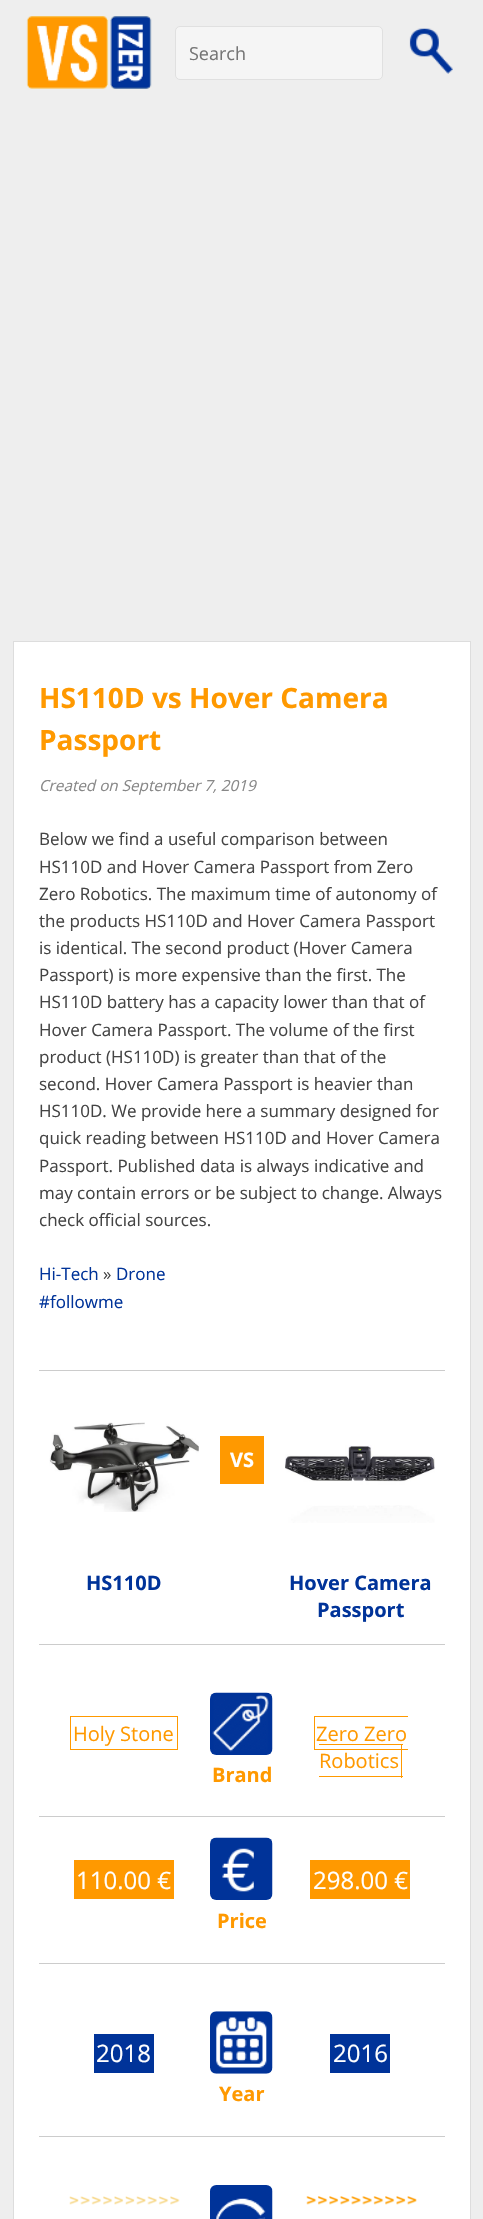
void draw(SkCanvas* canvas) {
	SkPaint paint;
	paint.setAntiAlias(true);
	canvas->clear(0xffeeeeee);
	canvas->drawImageRect(SkImages::DeferredFromEncodedData(SkData::MakeFromFileName("img1.png")), SkRect::MakeXYWH(26, 16, 126, 73), SkSamplingOptions());
	paint.setColor(0xfff5f5f5);
	canvas->drawRoundRect(SkRect::MakeXYWH(175.5, 26.5, 207, 53), 4.5, 4.5, paint);
	paint.setStroke(true);
	paint.setStrokeWidth(1);
	paint.setColor(0xffe0e0e0);
	canvas->drawRoundRect(SkRect::MakeXYWH(175.5, 26.5, 207, 53), 4.5, 4.5, paint);
	SkFont f1(fontMgr->matchFamilyStyle("Open Sans", SkFontStyle::Normal()), 18);
	f1.setSubpixel(true);
	paint.setStroke(false);
	paint.setColor(0xff757575);
	canvas->drawString("Search", 189, 60, f1, paint);
	canvas->drawImageRect(SkImages::DeferredFromEncodedData(SkData::MakeFromFileName("img2.png")), SkRect::MakeXYWH(409, 28, 44, 46), SkSamplingOptions());
	paint.setColor(0xffffffff);
	canvas->drawRect(SkRect::MakeXYWH(13.5, 641.5, 457, 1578), paint);
	paint.setStroke(true);
	paint.setColor(0xffdddddd);
	canvas->drawRect(SkRect::MakeXYWH(13.5, 641.5, 457, 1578), paint);
	SkFont f2(fontMgr->matchFamilyStyle("Open Sans", SkFontStyle::Bold()), 28);
	f2.setSubpixel(true);
	paint.setStroke(false);
	paint.setColor(0xffff9900);
	canvas->drawString("HS110D vs Hover Camera", 39, 708, f2, paint);
	canvas->drawString("Passport", 39, 750, f2, paint);
	SkFont f3(fontMgr->matchFamilyStyle("Open Sans", SkFontStyle::Italic()), 15.25);
	f3.setSubpixel(true);
	paint.setColor(0xff888888);
	canvas->drawString("Created on September 7, 2019", 39, 791, f3, paint);
	SkFont f4(fontMgr->matchFamilyStyle("Open Sans", SkFontStyle::Normal()), 17);
	f4.setSubpixel(true);
	paint.setColor(0xff444444);
	canvas->drawString("Below we find a useful comparison between", 39, 845, f4, paint);
	canvas->drawString("HS110D and Hover Camera Passport from Zero", 39, 873, f4, paint);
	canvas->drawString("Zero Robotics. The maximum time of autonomy of", 39, 900, f4, paint);
	canvas->drawString("the products HS110D and Hover Camera Passport", 39, 927, f4, paint);
	canvas->drawString("is identical. The second product (Hover Camera", 39, 954, f4, paint);
	canvas->drawString("Passport) is more expensive than the first. The", 39, 981, f4, paint);
	canvas->drawString("HS110D battery has a capacity lower than that of", 39, 1008, f4, paint);
	canvas->drawString("Hover Camera Passport. The volume of the first", 39, 1036, f4, paint);
	canvas->drawString("product (HS110D) is greater than that of the", 39, 1063, f4, paint);
	canvas->drawString("second. Hover Camera Passport is heavier than", 39, 1090, f4, paint);
	canvas->drawString("HS110D. We provide here a summary designed for", 39, 1117, f4, paint);
	canvas->drawString("quick reading between HS110D and Hover Camera", 39, 1144, f4, paint);
	canvas->drawString("Passport. Published data is always indicative and", 39, 1172, f4, paint);
	canvas->drawString("may contain errors or be subject to change. Always", 39, 1199, f4, paint);
	canvas->drawString("check official sources.", 39, 1226, f4, paint);
	paint.setColor(0xff003399);
	canvas->drawString("Hi-Tech", 39, 1280, f4, paint);
	paint.setColor(0xff444444);
	canvas->drawString("»", 103, 1280, f4, paint);
	paint.setColor(0xff003399);
	canvas->drawString("Drone", 116, 1280, f4, paint);
	canvas->drawString("#followme", 39, 1308, f4, paint);
	paint.setColor(0xffcccccc);
	canvas->drawRect(SkRect::MakeXYWH(39, 1370, 406, 1), paint);
	paint.setColor(0xffff9900);
	canvas->drawRect(SkRect::MakeXYWH(220, 1436, 44, 48), paint);
	SkFont f5(fontMgr->matchFamilyStyle("Open Sans", SkFontStyle::Bold()), 20);
	f5.setSubpixel(true);
	paint.setColor(0xffffffff);
	canvas->drawString("VS", 230, 1467, f5, paint);
	canvas->drawImageRect(SkImages::DeferredFromEncodedData(SkData::MakeFromFileName("img3.png")), SkRect::MakeXYWH(49, 1422, 150, 90), SkSamplingOptions());
	paint.setColor(0xff003399);
	canvas->drawString("HS110D", 86, 1590, f5, paint);
	canvas->drawImageRect(SkImages::DeferredFromEncodedData(SkData::MakeFromFileName("img4.png")), SkRect::MakeXYWH(285, 1445, 150, 78), SkSamplingOptions());
	canvas->drawString("Hover Camera", 289, 1590, f5, paint);
	canvas->drawString("Passport", 317, 1617, f5, paint);
	paint.setColor(0xffcccccc);
	canvas->drawRect(SkRect::MakeXYWH(39, 1644, 406, 1), paint);
	paint.setStroke(true);
	paint.setColor(0xffff9900);
	canvas->drawRect(SkRect::MakeXYWH(70.5, 1716.5, 107, 33), paint);
	SkFont f6(fontMgr->matchFamilyStyle("Open Sans", SkFontStyle::Normal()), 20);
	f6.setSubpixel(true);
	paint.setStroke(false);
	canvas->drawString("Holy Stone", 73, 1741, f6, paint);
	canvas->drawString("Zero Zero", 316, 1741, f6, paint);
	canvas->drawRect(SkRect::MakeXYWH(314, 1716, 94, 1), paint);
	canvas->drawRect(SkRect::MakeXYWH(314, 1749, 94, 1), paint);
	canvas->drawRect(SkRect::MakeXYWH(314, 1716, 1, 34), paint);
	canvas->drawRect(SkRect::MakeXYWH(319, 1744, 84, 1), paint);
	canvas->drawString("Robotics", 319, 1768, f6, paint);
	canvas->drawRect(SkRect::MakeXYWH(401, 1744, 1, 34), paint);
	canvas->drawRect(SkRect::MakeXYWH(319, 1776, 84, 1), paint);
	canvas->drawImageRect(SkImages::DeferredFromEncodedData(SkData::MakeFromFileName("img5.png")), SkRect::MakeXYWH(210, 1692, 63, 63), SkSamplingOptions());
	canvas->drawString("Brand", 212, 1782, f5, paint);
	paint.setColor(0xffcccccc);
	canvas->drawRect(SkRect::MakeXYWH(39, 1816, 406, 1), paint);
	paint.setColor(0xffff9900);
	canvas->drawRect(SkRect::MakeXYWH(74, 1860, 100, 39), paint);
	SkFont f7(fontMgr->matchFamilyStyle("Open Sans", SkFontStyle::Normal()), 24);
	f7.setSubpixel(true);
	paint.setColor(0xffffffff);
	canvas->drawString("110.00 €", 76, 1889, f7, paint);
	paint.setColor(0xffff9900);
	canvas->drawRect(SkRect::MakeXYWH(310, 1860, 100, 39), paint);
	paint.setColor(0xffffffff);
	canvas->drawString("298.00 €", 313, 1889, f7, paint);
	canvas->drawImageRect(SkImages::DeferredFromEncodedData(SkData::MakeFromFileName("img6.png")), SkRect::MakeXYWH(210, 1837, 63, 63), SkSamplingOptions());
	paint.setColor(0xffff9900);
	canvas->drawString("Price", 217, 1928, f5, paint);
	paint.setColor(0xffcccccc);
	canvas->drawRect(SkRect::MakeXYWH(39, 1963, 406, 1), paint);
	paint.setColor(0xff003399);
	canvas->drawRect(SkRect::MakeXYWH(94, 2034, 60, 39), paint);
	paint.setColor(0xffffffff);
	canvas->drawString("2018", 96, 2062, f7, paint);
	paint.setColor(0xff003399);
	canvas->drawRect(SkRect::MakeXYWH(330, 2034, 60, 39), paint);
	paint.setColor(0xffffffff);
	canvas->drawString("2016", 333, 2062, f7, paint);
	canvas->drawImageRect(SkImages::DeferredFromEncodedData(SkData::MakeFromFileName("img7.png")), SkRect::MakeXYWH(210, 2011, 63, 63), SkSamplingOptions());
	paint.setColor(0xffff9900);
	canvas->drawString("Year", 219, 2101, f5, paint);
	paint.setColor(0xffcccccc);
	canvas->drawRect(SkRect::MakeXYWH(39, 2136, 406, 1), paint);
	canvas->drawImageRect(SkImages::DeferredFromEncodedData(SkData::MakeFromFileName("img8.png")), SkRect::MakeXYWH(69, 2196, 111, 9), SkSamplingOptions());
	canvas->drawImageRect(SkImages::DeferredFromEncodedData(SkData::MakeFromFileName("img9.png")), SkRect::MakeXYWH(210, 2185, 63, 34), SkSamplingOptions());
	canvas->drawImageRect(SkImages::DeferredFromEncodedData(SkData::MakeFromFileName("img10.png")), SkRect::MakeXYWH(306, 2196, 111, 9), SkSamplingOptions());
}
